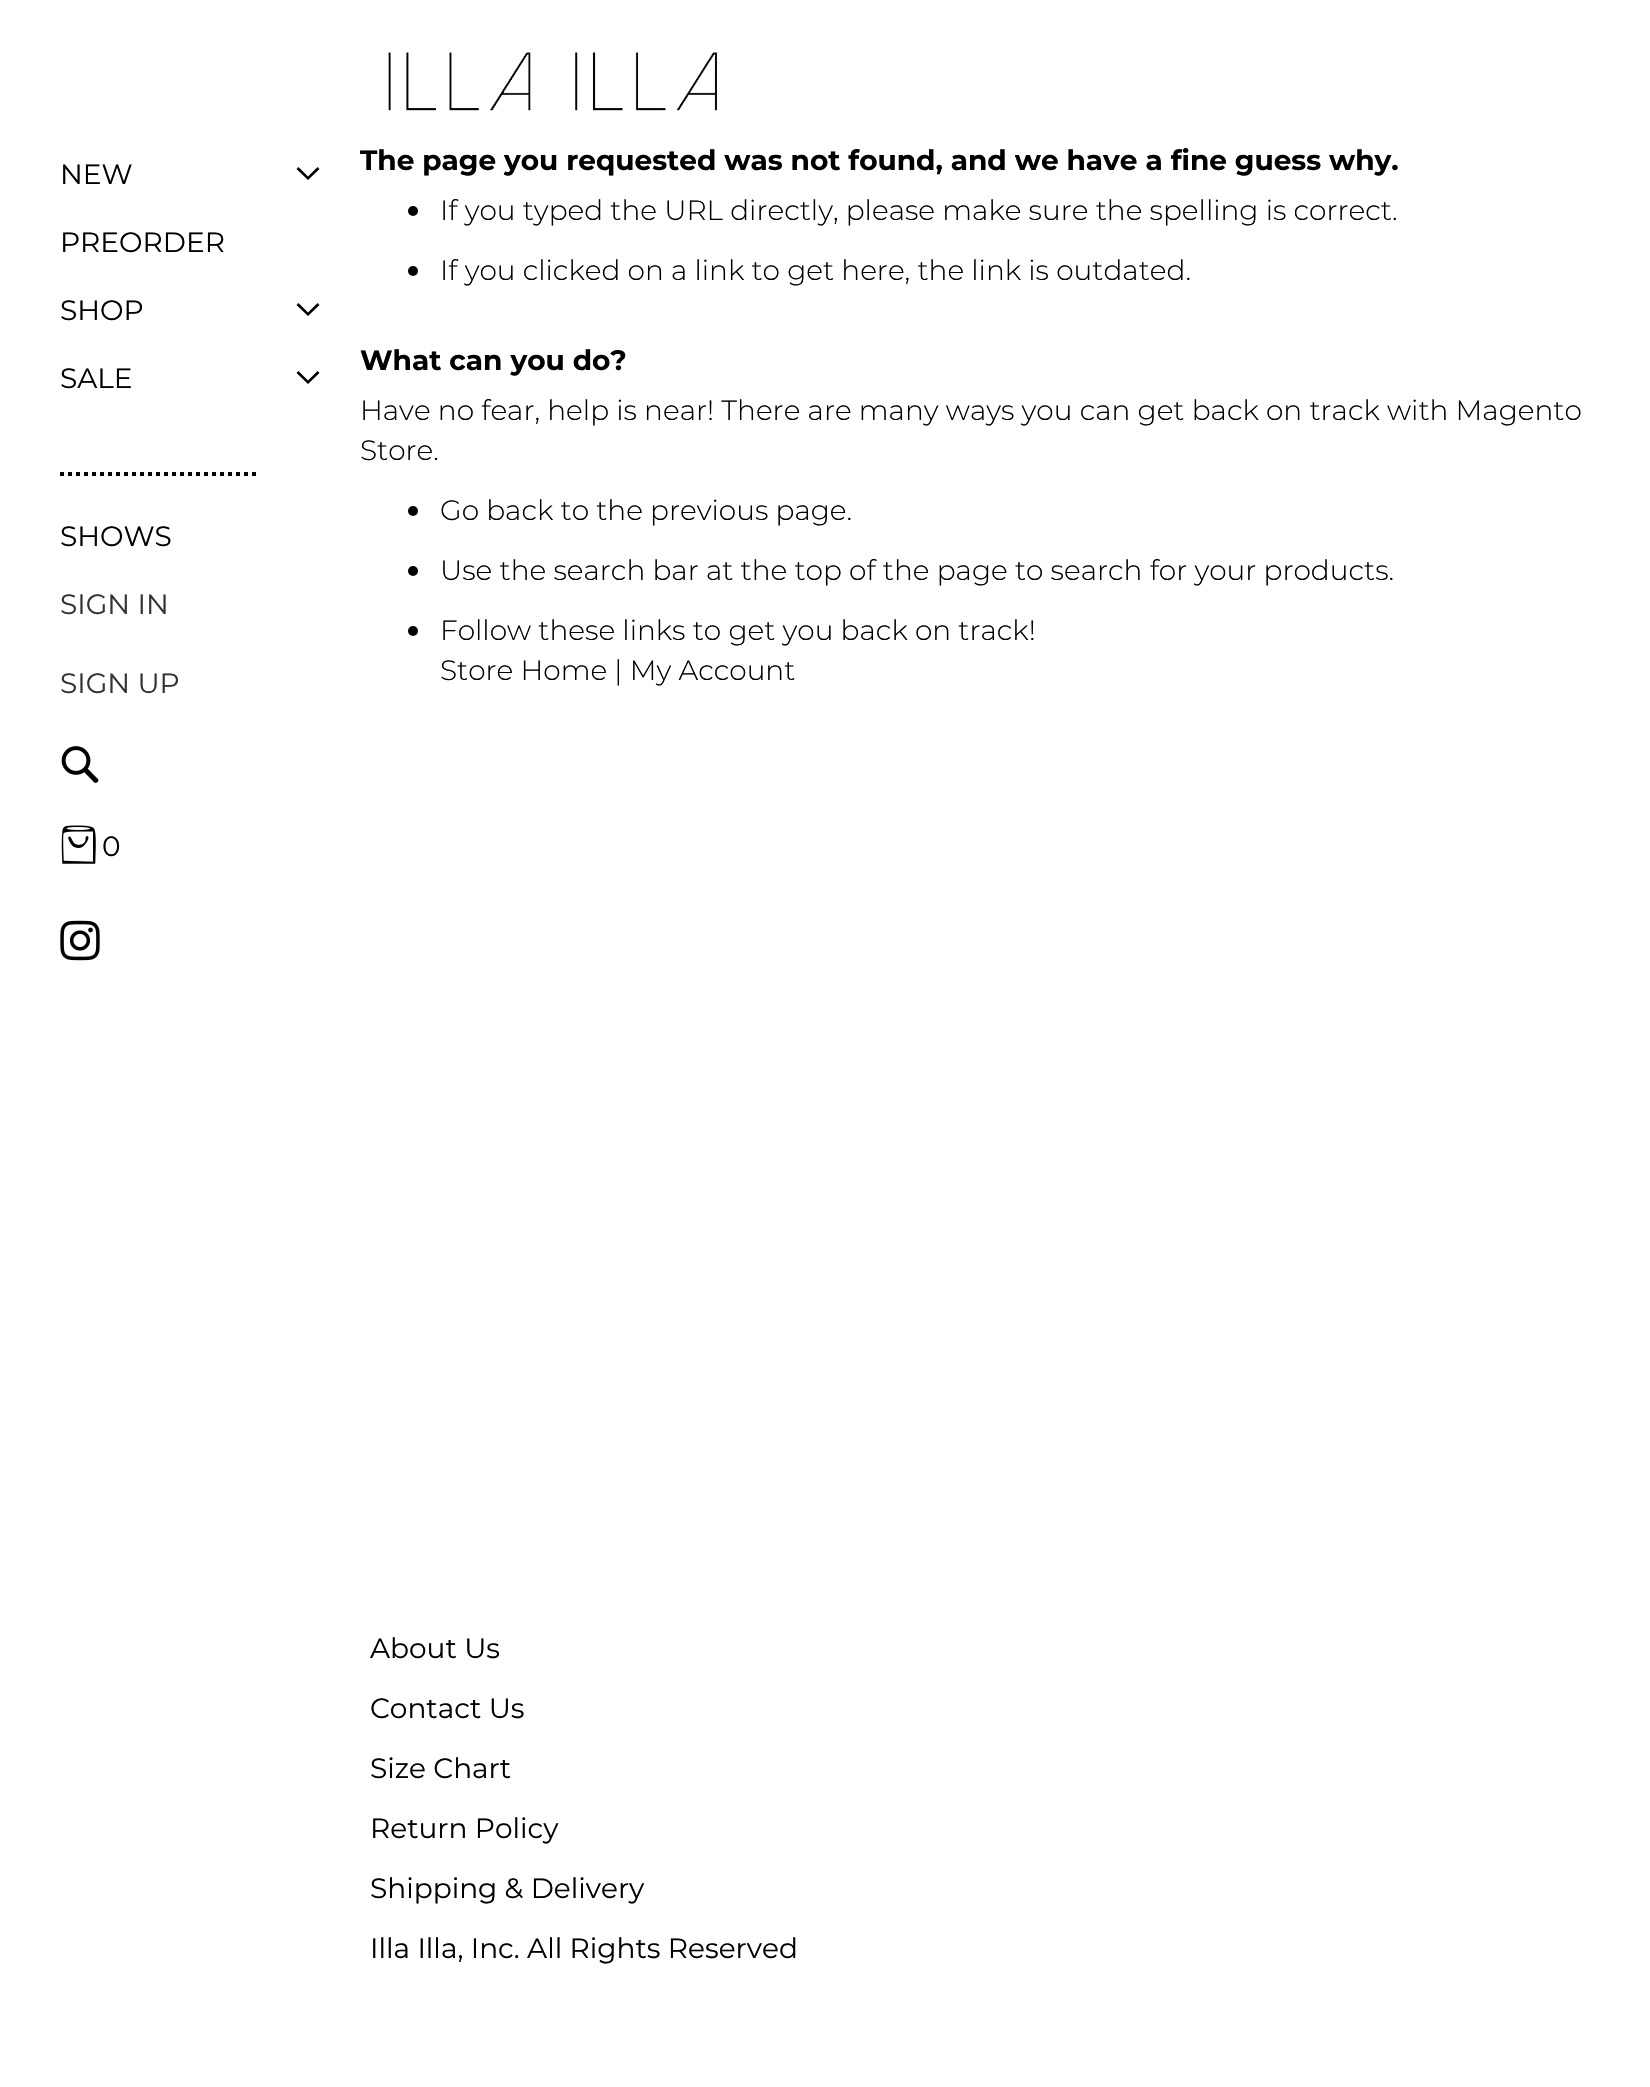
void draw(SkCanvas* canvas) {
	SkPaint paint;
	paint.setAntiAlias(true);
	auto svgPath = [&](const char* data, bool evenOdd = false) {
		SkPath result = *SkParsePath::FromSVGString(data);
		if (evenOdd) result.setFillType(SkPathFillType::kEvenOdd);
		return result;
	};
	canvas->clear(0xffffffff);
	canvas->drawImageRect(SkImages::DeferredFromEncodedData(SkData::MakeFromFileName("img1.png")), SkRect::MakeXYWH(388, 52, 329, 59), SkSamplingOptions());
	SkFont f1(fontMgr->matchFamilyStyle("Montserrat", SkFontStyle::Normal()), 28);
	f1.setSubpixel(true);
	paint.setColor(0xff000000);
	canvas->drawString("NEW", 60, 184, f1, paint);
	canvas->drawPath(svgPath("M308 176.5L298.5 167L296.5 169L308 180L319.5 169L317.5 167Z"), paint);
	canvas->drawString("PREORDER", 60, 252, f1, paint);
	canvas->drawString("SHOP", 60, 320, f1, paint);
	canvas->drawPath(svgPath("M308 312.5L298.5 303L296.5 305L308 316L319.5 305L317.5 303Z"), paint);
	canvas->drawString("SALE", 60, 388, f1, paint);
	canvas->drawPath(svgPath("M308 380.5L298.5 371L296.5 373L308 384L319.5 373L317.5 371Z"), paint);
	paint.setStroke(true);
	paint.setStrokeWidth(4);
	paint.setPathEffect(SkDashPathEffect::Make({{4, 4}}, 0));
	canvas->drawPath(svgPath("M60 474H260"), paint);
	paint.setPathEffect(nullptr);
	paint.setStroke(false);
	canvas->drawString("SHOWS", 60, 546, f1, paint);
	paint.setColor(0xff333333);
	canvas->drawString("SIGN IN", 60, 614, f1, paint);
	canvas->drawString("SIGN UP", 60, 693, f1, paint);
	canvas->drawImageRect(SkImages::DeferredFromEncodedData(SkData::MakeFromFileName("img2.png")), SkRect::MakeXYWH(61, 746, 38, 37), SkSamplingOptions());
	canvas->drawImageRect(SkImages::DeferredFromEncodedData(SkData::MakeFromFileName("img3.png")), SkRect::MakeXYWH(61, 825, 35, 39), SkSamplingOptions());
	paint.setColor(0xff000000);
	canvas->drawString("0", 102, 856, f1, paint);
	canvas->drawImageRect(SkImages::DeferredFromEncodedData(SkData::MakeFromFileName("img4.png")), SkRect::MakeXYWH(60, 920, 40, 41), SkSamplingOptions());
	SkFont f2(fontMgr->matchFamilyStyle("Montserrat", SkFontStyle::Bold()), 28);
	f2.setSubpixel(true);
	canvas->drawString("The page you requested was not found, and we have a fine guess why.", 360, 170, f2, paint);
	canvas->drawCircle(413, 211, 5, paint);
	SkFont f3(fontMgr->matchFamilyStyle("Montserrat", SkFontStyle(300, SkFontStyle::kNormal_Width, SkFontStyle::kUpright_Slant)), 28);
	f3.setSubpixel(true);
	canvas->drawString("If you typed the URL directly, please make sure the spelling is correct.", 440, 220, f3, paint);
	canvas->drawCircle(413, 271, 5, paint);
	canvas->drawString("If you clicked on a link to get here, the link is outdated.", 440, 280, f3, paint);
	canvas->drawString("What can you do?", 360, 370, f2, paint);
	canvas->drawString("Have no fear, help is near! There are many ways you can get back on track with Magento", 360, 420, f3, paint);
	canvas->drawString("Store.", 360, 460, f3, paint);
	canvas->drawCircle(413, 511, 5, paint);
	canvas->drawString("Go back to the previous page.", 440, 520, f3, paint);
	canvas->drawCircle(413, 571, 5, paint);
	canvas->drawString("Use the search bar at the top of the page to search for your products.", 440, 580, f3, paint);
	canvas->drawCircle(413, 631, 5, paint);
	canvas->drawString("Follow these links to get you back on track!", 440, 640, f3, paint);
	canvas->drawString("Store Home | My Account", 440, 680, f3, paint);
	canvas->drawString("About Us", 370, 1658, f1, paint);
	canvas->drawString("Contact Us", 370, 1718, f1, paint);
	canvas->drawString("Size Chart", 370, 1778, f1, paint);
	canvas->drawString("Return Policy", 370, 1838, f1, paint);
	canvas->drawString("Shipping & Delivery", 370, 1898, f1, paint);
	canvas->drawString("Illa Illa, Inc. All Rights Reserved", 370, 1958, f1, paint);
}
